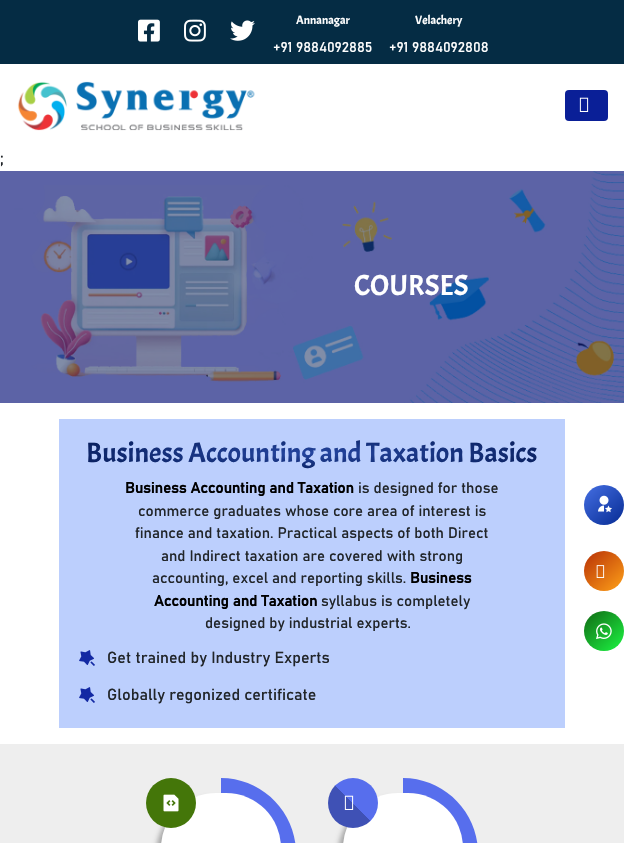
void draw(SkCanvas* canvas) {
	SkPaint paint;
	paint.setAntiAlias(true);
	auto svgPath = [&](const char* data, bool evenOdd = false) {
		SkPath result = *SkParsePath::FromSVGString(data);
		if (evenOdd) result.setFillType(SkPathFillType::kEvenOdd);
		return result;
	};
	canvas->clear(0xffffffff);
	paint.setColor(0xff052c44);
	canvas->drawRect(SkRect::MakeXYWH(0, 0, 624, 64), paint);
	canvas->drawImageRect(SkImages::DeferredFromEncodedData(SkData::MakeFromFileName("img1.png")), SkRect::MakeXYWH(138, 19, 22, 23), SkSamplingOptions());
	canvas->drawImageRect(SkImages::DeferredFromEncodedData(SkData::MakeFromFileName("img2.png")), SkRect::MakeXYWH(184, 19, 22, 23), SkSamplingOptions());
	canvas->drawImageRect(SkImages::DeferredFromEncodedData(SkData::MakeFromFileName("img3.png")), SkRect::MakeXYWH(230, 20, 25, 21), SkSamplingOptions());
	SkFont f1(fontMgr->matchFamilyStyle("Acme", SkFontStyle::Normal()), 12);
	f1.setSubpixel(true);
	paint.setColor(0xffffffff);
	canvas->drawString("Annanagar", 296, 24, f1, paint);
	SkFont f2(fontMgr->matchFamilyStyle("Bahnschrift", SkFontStyle::Normal()), 14);
	f2.setSubpixel(true);
	canvas->drawString("+91 9884092885", 273, 52, f2, paint);
	canvas->drawString("Velachery", 415, 24, f1, paint);
	canvas->drawString("+91 9884092808", 389, 52, f2, paint);
	canvas->drawImageRect(SkImages::DeferredFromEncodedData(SkData::MakeFromFileName("img4.png")), SkRect::MakeXYWH(17, 81, 238, 50), SkSamplingOptions());
	paint.setColor(0xff0a1f97);
	canvas->drawRoundRect(SkRect::MakeXYWH(565, 90, 43, 31), 4, 4, paint);
	canvas->drawImageRect(SkImages::DeferredFromEncodedData(SkData::MakeFromFileName("img5.png")), SkRect::MakeXYWH(579, 97, 10, 15), SkSamplingOptions());
	SkFont f3(fontMgr->matchFamilyStyle("Bahnschrift", SkFontStyle::Normal()), 16);
	f3.setSubpixel(true);
	paint.setColor(0xff212529);
	canvas->drawString(";", 0, 164, f3, paint);
	paint.setColor(0xff011950);
	canvas->drawRect(SkRect::MakeXYWH(0, 171, 624, 232), paint);
	canvas->drawImageRect(SkImages::DeferredFromEncodedData(SkData::MakeFromFileName("img6.png")), SkRect::MakeXYWH(0, 171, 624, 232), SkSamplingOptions());
	SkFont f4(fontMgr->matchFamilyStyle("Acme", SkFontStyle::Normal()), 29);
	f4.setSubpixel(true);
	paint.setColor(0xffffffff);
	canvas->drawString("COURSES", 354, 295, f4, paint);
	paint.setColor(0xffbccffd);
	canvas->drawRect(SkRect::MakeXYWH(59, 419, 506, 309), paint);
	SkFont f5(fontMgr->matchFamilyStyle("Acme", SkFontStyle::Normal()), 28);
	f5.setSubpixel(true);
	{
		const SkColor colors[] = {0xff2546a1, 0xff02164e};
		const float stops[] = {0, 1};
		SkMatrix m = SkMatrix::Translate(312, 453).preScale(332, 24);
		paint.setShader(SkGradientShader::MakeRadial({0, 0}, 1, colors, stops, 2, SkTileMode::kClamp, 0, &m));
		paint.setAlpha(255);
	}
	canvas->drawString("Business Accounting and Taxation Basics", 86, 462, f5, paint);
	SkFont f6(fontMgr->matchFamilyStyle("Bahnschrift", SkFontStyle::Bold()), 15);
	f6.setSubpixel(true);
	paint.setShader(nullptr);
	paint.setColor(0xff000000);
	canvas->drawString("Business Accounting and Taxation", 125, 493, f6, paint);
	SkFont f7(fontMgr->matchFamilyStyle("Bahnschrift", SkFontStyle::Normal()), 15);
	f7.setSubpixel(true);
	paint.setColor(0xff212529);
	canvas->drawString("is designed for those", 358, 493, f7, paint);
	canvas->drawString("commerce graduates whose core area of interest is", 138, 516, f7, paint);
	canvas->drawString("finance and taxation. Practical aspects of both Direct", 135, 538, f7, paint);
	canvas->drawString("and Indirect taxation are covered with strong", 161, 561, f7, paint);
	canvas->drawString("accounting, excel and reporting skills.", 152, 583, f7, paint);
	paint.setColor(0xff000000);
	canvas->drawString("Business", 410, 583, f6, paint);
	canvas->drawString("Accounting and Taxation", 154, 606, f6, paint);
	paint.setColor(0xff212529);
	canvas->drawString("syllabus is completely", 321, 606, f7, paint);
	canvas->drawString("designed by industrial experts.", 205, 628, f7, paint);
	canvas->drawImageRect(SkImages::DeferredFromEncodedData(SkData::MakeFromFileName("img7.png")), SkRect::MakeXYWH(79, 650, 16, 16), SkSamplingOptions());
	canvas->drawString("Get trained by Industry Experts", 107, 663, f3, paint);
	canvas->drawImageRect(SkImages::DeferredFromEncodedData(SkData::MakeFromFileName("img7.png")), SkRect::MakeXYWH(79, 687, 16, 16), SkSamplingOptions());
	canvas->drawString("Globally regonized certificate", 107, 700, f3, paint);
	{
		const SkColor colors[] = {0xff062b93, 0xff456fe3};
		const float stops[] = {0, 1};
		const SkPoint ends[] = {{623, 526}, {585, 484}};
		paint.setShader(SkGradientShader::MakeLinear(ends, colors, stops, 2, SkTileMode::kClamp));
		paint.setAlpha(255);
	}
	canvas->drawCircle(604, 505, 20, paint);
	canvas->drawImageRect(SkImages::DeferredFromEncodedData(SkData::MakeFromFileName("img8.png")), SkRect::MakeXYWH(598, 495, 14, 18), SkSamplingOptions());
	{
		const SkColor colors[] = {0xffffa219, 0xffb73006};
		const float stops[] = {0, 1};
		const SkPoint ends[] = {{623, 592}, {585, 550}};
		paint.setShader(SkGradientShader::MakeLinear(ends, colors, stops, 2, SkTileMode::kClamp));
		paint.setAlpha(255);
	}
	canvas->drawCircle(604, 571, 20, paint);
	canvas->drawImageRect(SkImages::DeferredFromEncodedData(SkData::MakeFromFileName("img9.png")), SkRect::MakeXYWH(596, 565, 9, 13), SkSamplingOptions());
	{
		const SkColor colors[] = {0xff1cf743, 0xff116814};
		const float stops[] = {0, 1};
		const SkPoint ends[] = {{623, 652}, {585, 610}};
		paint.setShader(SkGradientShader::MakeLinear(ends, colors, stops, 2, SkTileMode::kClamp));
		paint.setAlpha(255);
	}
	canvas->drawCircle(604, 631, 20, paint);
	canvas->drawImageRect(SkImages::DeferredFromEncodedData(SkData::MakeFromFileName("img10.png")), SkRect::MakeXYWH(596, 623, 16, 17), SkSamplingOptions());
	paint.setShader(nullptr);
	paint.setColor(0xffeeeeee);
	canvas->drawRect(SkRect::MakeXYWH(0, 744, 624, 99), paint);
	{
		const SkColor colors[] = {0xff3f51b5, 0xff576eed};
		const float stops[] = {0.49, 0.5};
		const SkPoint ends[] = {{146, 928}, {296, 778}};
		paint.setShader(SkGradientShader::MakeLinear(ends, colors, stops, 2, SkTileMode::kClamp));
		paint.setAlpha(255);
	}
	canvas->drawPath(svgPath("M221 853H146C146 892 176 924 213 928H229C266 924 296 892 296 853C296 812 262 778 221 778Z"), paint);
	paint.setShader(nullptr);
	paint.setColor(0x4d000000);
	paint.setMaskFilter(SkMaskFilter::MakeBlur(kNormal_SkBlurStyle, 2.5));
	canvas->drawRoundRect(SkRect::MakeXYWH(156, 798, 120, 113), 60, 60, paint);
	paint.setMaskFilter(nullptr);
	paint.setColor(0xffffffff);
	canvas->drawRoundRect(SkRect::MakeXYWH(161, 793, 120, 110), 60, 60, paint);
	paint.setColor(0xff447609);
	canvas->drawCircle(171, 803, 25, paint);
	canvas->drawImageRect(SkImages::DeferredFromEncodedData(SkData::MakeFromFileName("img11.png")), SkRect::MakeXYWH(163, 794, 16, 18), SkSamplingOptions());
	{
		const SkColor colors[] = {0xff3f51b5, 0xff576eed};
		const float stops[] = {0.49, 0.5};
		const SkPoint ends[] = {{328, 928}, {478, 778}};
		paint.setShader(SkGradientShader::MakeLinear(ends, colors, stops, 2, SkTileMode::kClamp));
		paint.setAlpha(255);
	}
	canvas->drawPath(svgPath("M403 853H328C328 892 358 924 395 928H411C448 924 478 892 478 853C478 812 444 778 403 778Z"), paint);
	paint.setShader(nullptr);
	paint.setColor(0x4d000000);
	paint.setMaskFilter(SkMaskFilter::MakeBlur(kNormal_SkBlurStyle, 2.5));
	canvas->drawRoundRect(SkRect::MakeXYWH(338, 798, 120, 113), 60, 60, paint);
	paint.setMaskFilter(nullptr);
	paint.setColor(0xffffffff);
	canvas->drawRoundRect(SkRect::MakeXYWH(343, 793, 120, 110), 60, 60, paint);
	{
		const SkColor colors[] = {0xff3f51b5, 0xff576eed};
		const float stops[] = {0.49, 0.5};
		const SkPoint ends[] = {{328, 828}, {378, 778}};
		paint.setShader(SkGradientShader::MakeLinear(ends, colors, stops, 2, SkTileMode::kClamp));
		paint.setAlpha(255);
	}
	canvas->drawCircle(353, 803, 25, paint);
	canvas->drawImageRect(SkImages::DeferredFromEncodedData(SkData::MakeFromFileName("img12.png")), SkRect::MakeXYWH(344, 795, 10, 15), SkSamplingOptions());
}
